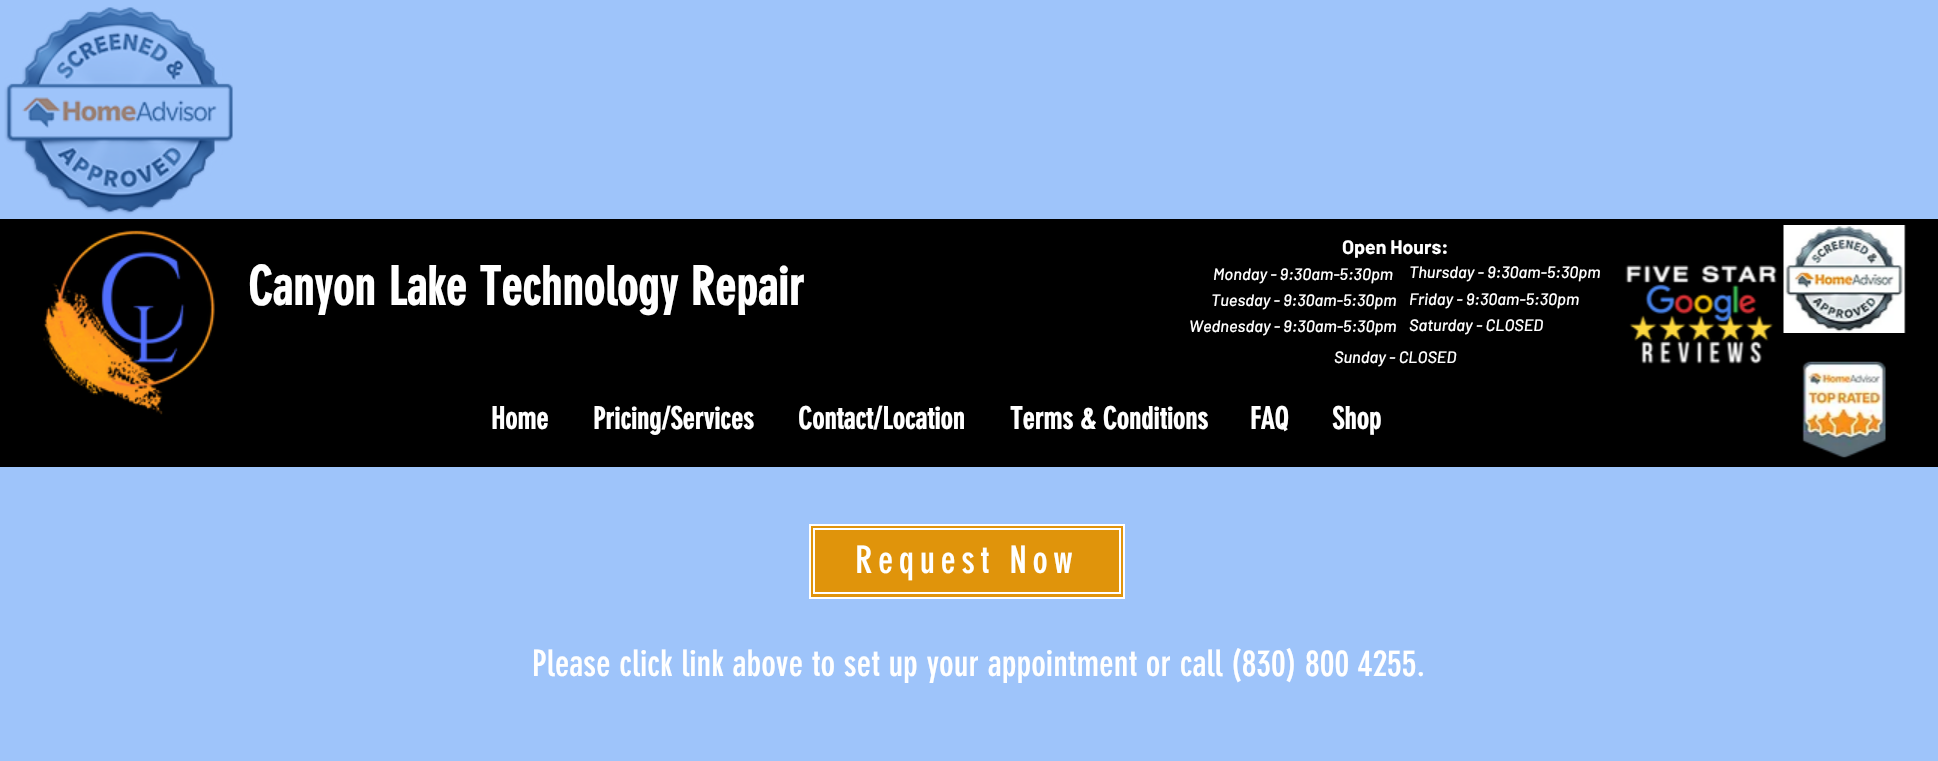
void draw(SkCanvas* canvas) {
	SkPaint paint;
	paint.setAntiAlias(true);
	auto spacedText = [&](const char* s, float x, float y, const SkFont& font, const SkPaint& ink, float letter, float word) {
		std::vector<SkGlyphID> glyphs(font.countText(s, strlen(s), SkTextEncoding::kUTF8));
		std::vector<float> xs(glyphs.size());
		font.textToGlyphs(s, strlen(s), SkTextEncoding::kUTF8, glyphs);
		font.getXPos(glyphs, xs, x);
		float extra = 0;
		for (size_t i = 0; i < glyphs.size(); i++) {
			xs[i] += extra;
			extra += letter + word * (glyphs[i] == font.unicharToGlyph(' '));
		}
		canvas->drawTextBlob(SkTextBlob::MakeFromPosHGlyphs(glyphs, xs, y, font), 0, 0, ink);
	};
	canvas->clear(0xff9ec4fa);
	canvas->drawImageRect(SkImages::DeferredFromEncodedData(SkData::MakeFromFileName("img1.png")), SkRect::MakeXYWH(4, 7, 229, 208), SkSamplingOptions());
	paint.setColor(0xff000000);
	canvas->drawRect(SkRect::MakeXYWH(0, 219, 1938, 248), paint);
	canvas->drawImageRect(SkImages::DeferredFromEncodedData(SkData::MakeFromFileName("img2.png")), SkRect::MakeXYWH(43, 230, 172, 185), SkSamplingOptions());
	SkFont f1(fontMgr->matchFamilyStyle("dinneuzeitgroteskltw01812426", SkFontStyle::Bold()), 52.5);
	f1.setSubpixel(true);
	paint.setColor(0xffffffff);
	canvas->drawString("Canyon Lake Technology Repair", 248, 305, f1, paint);
	SkFont f2(fontMgr->matchFamilyStyle("Barlow", SkFontStyle::Bold()), 19.5);
	f2.setSubpixel(true);
	canvas->drawString("Open Hours:", 1342, 254, f2, paint);
	canvas->drawImageRect(SkImages::DeferredFromEncodedData(SkData::MakeFromFileName("img3.png")), SkRect::MakeXYWH(1783, 225, 123, 108), SkSamplingOptions());
	SkFont f3(fontMgr->matchFamilyStyle("Barlow", SkFontStyle(500, SkFontStyle::kNormal_Width, SkFontStyle::kItalic_Slant)), 16.5);
	f3.setSubpixel(true);
	canvas->drawString("Monday - 9:30am-5:30pm", 1213, 280, f3, paint);
	canvas->drawString("Tuesday - 9:30am-5:30pm", 1211, 306, f3, paint);
	canvas->drawString("Wednesday - 9:30am-5:30pm", 1189, 332, f3, paint);
	canvas->drawString("Thursday - 9:30am-5:30pm", 1409, 278, f3, paint);
	canvas->drawString("Friday - 9:30am-5:30pm", 1409, 305, f3, paint);
	canvas->drawString("Saturday - CLOSED", 1409, 331, f3, paint);
	canvas->drawImageRect(SkImages::DeferredFromEncodedData(SkData::MakeFromFileName("img4.png")), SkRect::MakeXYWH(1625, 265, 152, 99), SkSamplingOptions());
	canvas->drawString("Sunday - CLOSED", 1334, 363, f3, paint);
	canvas->drawImageRect(SkImages::DeferredFromEncodedData(SkData::MakeFromFileName("img5.png")), SkRect::MakeXYWH(1802, 361, 84, 97), SkSamplingOptions());
	SkFont f4(fontMgr->matchFamilyStyle("dinneuzeitgroteskltw01812426", SkFontStyle::Bold()), 30);
	f4.setSubpixel(true);
	canvas->drawString("Home", 491, 429, f4, paint);
	canvas->drawString("Pricing/Services", 593, 429, f4, paint);
	canvas->drawString("Contact/Location", 798, 429, f4, paint);
	canvas->drawString("Terms & Conditions", 1010, 429, f4, paint);
	canvas->drawString("FAQ", 1250, 429, f4, paint);
	canvas->drawString("Shop", 1332, 429, f4, paint);
	paint.setColor(0xffe0940b);
	canvas->drawRect(SkRect::MakeXYWH(810, 525, 314, 73), paint);
	paint.setStroke(true);
	paint.setStrokeWidth(2);
	paint.setColor(0xffffffff);
	canvas->drawRect(SkRect::MakeXYWH(810, 525, 314, 73), paint);
	canvas->drawRect(SkRect::MakeXYWH(814, 529, 306, 64), paint);
	SkFont f5(fontMgr->matchFamilyStyle("dinneuzeitgroteskltw01812426", SkFontStyle::Normal()), 37.5);
	f5.setSubpixel(true);
	paint.setStroke(false);
	spacedText("Request Now", 855, 573, f5, paint, 5.6, 0);
	SkFont f6(fontMgr->matchFamilyStyle("dinneuzeitgroteskltw01812426", SkFontStyle::Normal()), 36);
	f6.setSubpixel(true);
	canvas->drawString("Please click link above to set up your appointment or call (830) 800 4255.", 532, 676, f6, paint);
}
